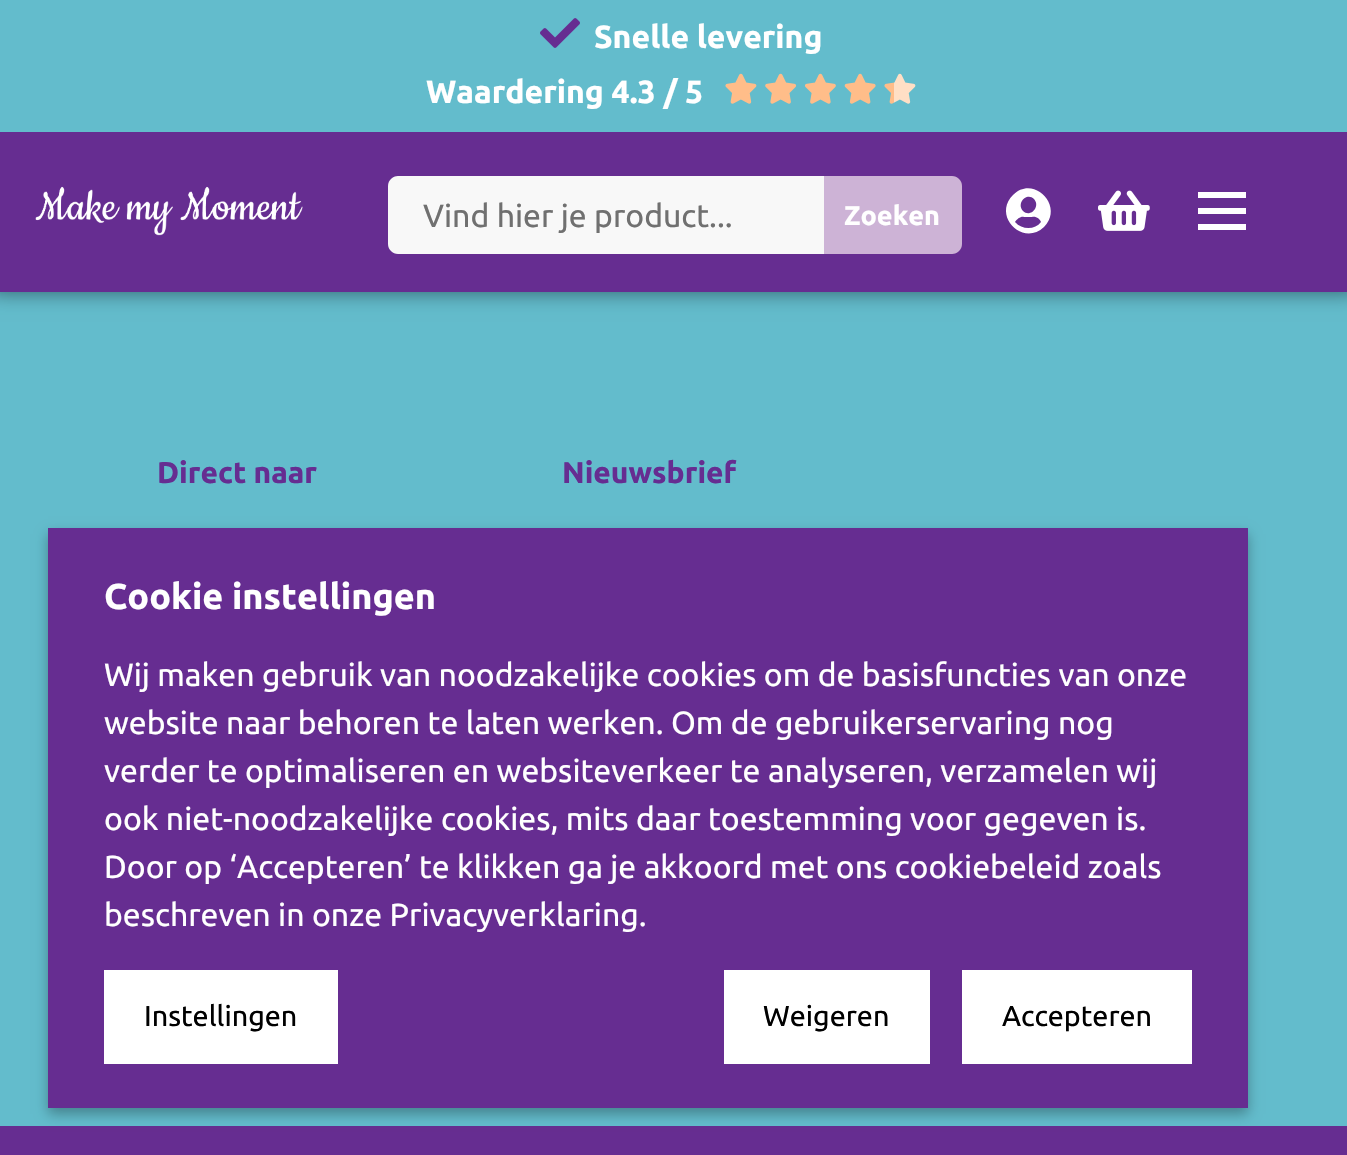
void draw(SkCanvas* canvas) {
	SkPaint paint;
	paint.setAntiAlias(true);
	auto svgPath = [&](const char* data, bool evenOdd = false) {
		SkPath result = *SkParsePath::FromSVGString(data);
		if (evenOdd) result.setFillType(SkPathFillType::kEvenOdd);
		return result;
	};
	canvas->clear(0xff63bccc);
	paint.setColor(0x80000000);
	paint.setMaskFilter(SkMaskFilter::MakeBlur(kNormal_SkBlurStyle, 10));
	canvas->drawRect(SkRect::MakeXYWH(-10, -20, 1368, 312), paint);
	paint.setMaskFilter(nullptr);
	paint.setColor(0xff662d91);
	canvas->drawRect(SkRect::MakeXYWH(0, 132, 1347, 160), paint);
	paint.setColor(0xff63bccc);
	canvas->drawRect(SkRect::MakeXYWH(0, 0, 1347, 132), paint);
	canvas->drawImageRect(SkImages::DeferredFromEncodedData(SkData::MakeFromFileName("img1.png")), SkRect::MakeXYWH(540, 18, 40, 30), SkSamplingOptions());
	SkFont f1(fontMgr->matchFamilyStyle("Ubuntu", SkFontStyle::Bold()), 32);
	f1.setSubpixel(true);
	paint.setColor(0xffffffff);
	canvas->drawString("Snelle levering", 594, 48, f1, paint);
	canvas->drawString("Waardering 4.3 / 5", 426, 103, f1, paint);
	canvas->drawImageRect(SkImages::DeferredFromEncodedData(SkData::MakeFromFileName("img2.png")), SkRect::MakeXYWH(725, 73, 191, 31), SkSamplingOptions());
	canvas->drawImageRect(SkImages::DeferredFromEncodedData(SkData::MakeFromFileName("img3.png")), SkRect::MakeXYWH(35, 186, 268, 50), SkSamplingOptions());
	paint.setColor(0xfff8f8f8);
	canvas->drawPath(svgPath("M398 176H824V254H398C392.5 254 388 249.5 388 244V186C388 180.5 392.5 176 398 176Z"), paint);
	SkFont f2(fontMgr->matchFamilyStyle("Ubuntu", SkFontStyle::Normal()), 32);
	f2.setSubpixel(true);
	paint.setColor(0xff707070);
	canvas->drawString("Vind hier je product...", 423, 227, f2, paint);
	paint.setColor(0xffcdb3d6);
	canvas->drawPath(svgPath("M824 176H952C957.5 176 962 180.5 962 186V244C962 249.5 957.5 254 952 254H824Z"), paint);
	SkFont f3(fontMgr->matchFamilyStyle("Ubuntu", SkFontStyle::Bold()), 27);
	f3.setSubpixel(true);
	paint.setColor(0xffffffff);
	canvas->drawString("Zoeken", 844, 225, f3, paint);
	canvas->drawPath(svgPath("M1013 195C1033 174 1065 206 1044 227C1023 247 992 216 1013 195ZM1034 199C1027 192 1016 203 1023 211C1030 218 1041 207 1034 199ZM1015 222C1022 230 1035 230 1041 222C1040 219 1036 216 1032 217H1028H1024C1021 216 1017 219 1015 222Z"), paint);
	canvas->drawImageRect(SkImages::DeferredFromEncodedData(SkData::MakeFromFileName("img4.png")), SkRect::MakeXYWH(1098, 190, 52, 41), SkSamplingOptions());
	canvas->drawRect(SkRect::MakeXYWH(1198, 192, 48, 6), paint);
	canvas->drawRect(SkRect::MakeXYWH(1198, 208, 48, 6), paint);
	canvas->drawRect(SkRect::MakeXYWH(1198, 224, 48, 6), paint);
	SkFont f4(fontMgr->matchFamilyStyle("Ubuntu", SkFontStyle::Bold()), 30);
	f4.setSubpixel(true);
	paint.setColor(0xff662d91);
	canvas->drawString("Direct naar", 157, 483, f4, paint);
	canvas->drawString("Nieuwsbrief", 562, 483, f4, paint);
	canvas->drawRect(SkRect::MakeXYWH(0, 1126, 1347, 29), paint);
	paint.setColor(0x4d000000);
	paint.setMaskFilter(SkMaskFilter::MakeBlur(kNormal_SkBlurStyle, 6));
	canvas->drawRect(SkRect::MakeXYWH(48, 534, 1200, 580), paint);
	paint.setMaskFilter(nullptr);
	paint.setColor(0xff662d91);
	canvas->drawRect(SkRect::MakeXYWH(48, 528, 1200, 580), paint);
	SkFont f5(fontMgr->matchFamilyStyle("Ubuntu", SkFontStyle::Bold()), 36);
	f5.setSubpixel(true);
	paint.setColor(0xffffffff);
	canvas->drawString("Cookie instellingen", 104, 609, f5, paint);
	canvas->drawString("Wij maken gebruik van noodzakelijke cookies om de basisfuncties van onze", 104, 686, f2, paint);
	canvas->drawString("website naar behoren te laten werken. Om de gebruikerservaring nog", 104, 734, f2, paint);
	canvas->drawString("verder te optimaliseren en websiteverkeer te analyseren, verzamelen wij", 104, 782, f2, paint);
	canvas->drawString("ook niet-noodzakelijke cookies, mits daar toestemming voor gegeven is.", 104, 830, f2, paint);
	canvas->drawString("Door op ‘Accepteren’ te klikken ga je akkoord met ons cookiebeleid zoals", 104, 878, f2, paint);
	canvas->drawString("beschreven in onze Privacyverklaring.", 104, 926, f2, paint);
	canvas->drawRect(SkRect::MakeXYWH(104, 970, 234, 94), paint);
	SkFont f6(fontMgr->matchFamilyStyle("Ubuntu", SkFontStyle::Normal()), 28.75);
	f6.setSubpixel(true);
	paint.setColor(0xff000000);
	canvas->drawString("Instellingen", 144, 1026, f6, paint);
	paint.setColor(0xffffffff);
	canvas->drawRect(SkRect::MakeXYWH(724, 970, 206, 94), paint);
	paint.setColor(0xff000000);
	canvas->drawString("Weigeren", 763, 1026, f6, paint);
	paint.setColor(0xffffffff);
	canvas->drawRect(SkRect::MakeXYWH(962, 970, 230, 94), paint);
	paint.setColor(0xff000000);
	canvas->drawString("Accepteren", 1002, 1026, f6, paint);
}
